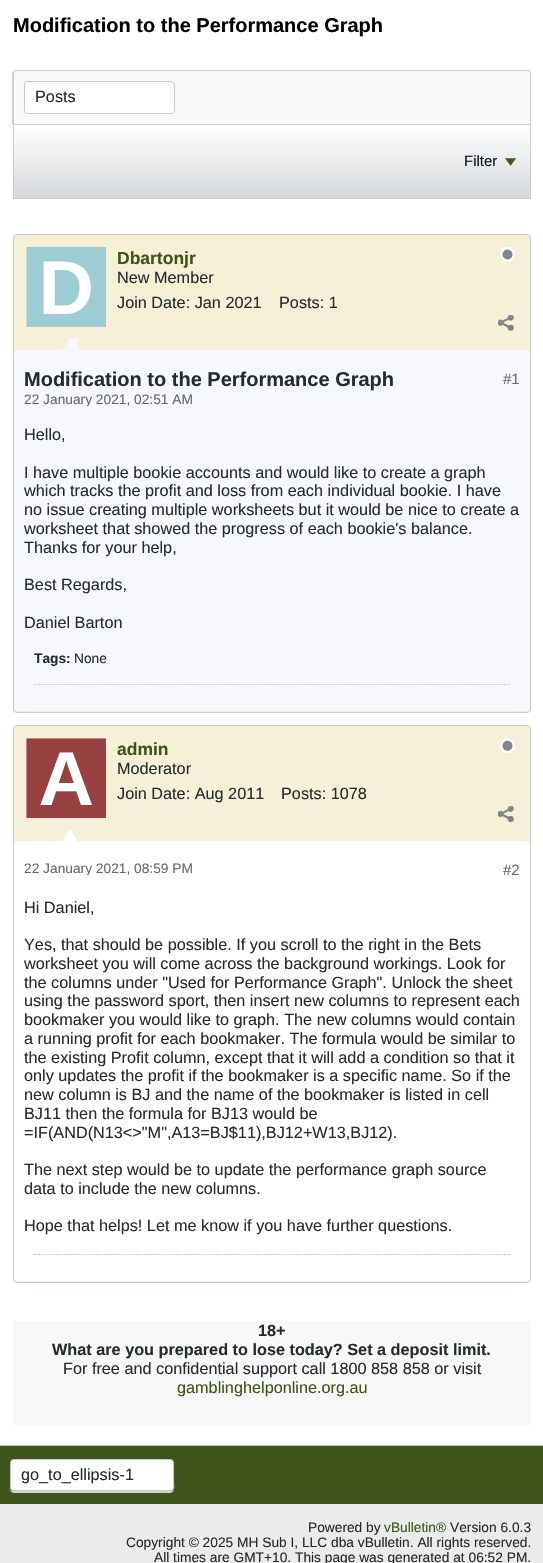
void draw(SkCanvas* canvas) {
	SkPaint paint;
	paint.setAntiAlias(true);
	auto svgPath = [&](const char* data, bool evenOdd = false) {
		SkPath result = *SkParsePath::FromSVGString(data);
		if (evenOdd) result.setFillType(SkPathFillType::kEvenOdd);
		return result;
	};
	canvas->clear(0xffeaebec);
	paint.setColor(0xffffffff);
	canvas->drawRect(SkRect::MakeXYWH(0, 0, 543, 1445), paint);
	SkFont f1(fontMgr->matchFamilyStyle("Liberation Sans", SkFontStyle::Bold()), 20);
	f1.setSubpixel(true);
	paint.setColor(0xff000000);
	canvas->drawString("Modification to the Performance Graph", 13, 32, f1, paint);
	paint.setColor(0xfff8f8f8);
	canvas->drawPath(svgPath("M17 70H527C529 70 531 72 531 74V124H13V74C13 72 15 70 17 70Z"), paint);
	paint.setColor(0xffc9ced2);
	canvas->drawPath(svgPath("M16 70H528C530 70 531 72 531 74V124H12V74C12 72 14 70 16 70ZM16 71H528C529 71 530 72 530 74V124H14V74C14 72 15 71 16 71Z", true), paint);
	paint.setColor(0xfffdfdfd);
	canvas->drawPath(svgPath("M24 111C24 113 26 115 28 115H171C173 115 175 113 175 111V110C175 112 173 114 171 114H28C26 114 25 113 24 111Z"), paint);
	paint.setColor(0xffffffff);
	canvas->drawRoundRect(SkRect::MakeXYWH(24.5, 81.5, 150, 32), 3.5, 3.5, paint);
	paint.setStroke(true);
	paint.setStrokeWidth(1);
	paint.setColor(0xffc8ccce);
	canvas->drawRoundRect(SkRect::MakeXYWH(24.5, 81.5, 150, 32), 3.5, 3.5, paint);
	paint.setStroke(false);
	paint.setColor(0xffffffff);
	canvas->drawRoundRect(SkRect::MakeXYWH(25, 83, 149, 30), 4, 4, paint);
	SkFont f2(fontMgr->matchFamilyStyle("Liberation Sans", SkFontStyle::Normal()), 16.25);
	f2.setSubpixel(true);
	paint.setColor(0xff252c2f);
	canvas->drawString("Posts", 35, 102, f2, paint);
	{
		const SkColor colors[] = {0xfffefeff, 0xffd5d8da};
		const float stops[] = {0, 1};
		const SkPoint ends[] = {{272, 125}, {272, 198}};
		paint.setShader(SkGradientShader::MakeLinear(ends, colors, stops, 2, SkTileMode::kClamp));
		paint.setAlpha(255);
	}
	canvas->drawRect(SkRect::MakeXYWH(14, 128, 516, 70), paint);
	paint.setStroke(true);
	paint.setShader(nullptr);
	paint.setColor(0xffc9ced2);
	canvas->drawRect(SkRect::MakeXYWH(13.5, 124.5, 517, 74), paint);
	SkFont f3(fontMgr->matchFamilyStyle("Liberation Sans", SkFontStyle::Normal()), 15);
	f3.setSubpixel(true);
	paint.setStroke(false);
	paint.setColor(0xff09161b);
	canvas->drawString("Filter", 464, 166, f3, paint);
	canvas->drawImageRect(SkImages::DeferredFromEncodedData(SkData::MakeFromFileName("img1.png")), SkRect::MakeXYWH(505, 158, 11, 8), SkSamplingOptions());
	paint.setColor(0xfff5f0d7);
	canvas->drawRoundRect(SkRect::MakeXYWH(13.5, 234.5, 517, 478), 3.5, 3.5, paint);
	paint.setStroke(true);
	paint.setColor(0xffc8ccce);
	canvas->drawRoundRect(SkRect::MakeXYWH(13.5, 234.5, 517, 478), 3.5, 3.5, paint);
	canvas->drawImageRect(SkImages::DeferredFromEncodedData(SkData::MakeFromFileName("img2.png")), SkRect::MakeXYWH(26, 247, 80, 80), SkSamplingOptions());
	SkFont f4(fontMgr->matchFamilyStyle("Liberation Sans", SkFontStyle::Bold()), 17.5);
	f4.setSubpixel(true);
	paint.setStroke(false);
	paint.setColor(0xff3e541b);
	canvas->drawString("Dbartonjr", 117, 264, f4, paint);
	canvas->drawImageRect(SkImages::DeferredFromEncodedData(SkData::MakeFromFileName("img3.png")), SkRect::MakeXYWH(500, 247, 15, 15), SkSamplingOptions());
	paint.setColor(0xff252c2f);
	canvas->drawString("New Member", 117, 283, f2, paint);
	canvas->drawString("Join Date: Jan 2021", 117, 308, f2, paint);
	canvas->drawString("Posts: 1", 279, 308, f2, paint);
	canvas->drawImageRect(SkImages::DeferredFromEncodedData(SkData::MakeFromFileName("img4.png")), SkRect::MakeXYWH(498, 315, 16, 16), SkSamplingOptions());
	paint.setColor(0xfff6f8fc);
	canvas->drawRoundRect(SkRect::MakeXYWH(14, 350, 516, 361), 4, 4, paint);
	canvas->drawRect(SkRect::MakeXYWH(70, 338, 8, 12), paint);
	canvas->drawPath(svgPath("M77.5 350H62.5L70 337.5Z"), paint);
	paint.setColor(0xff252c2f);
	canvas->drawString("Modification to the Performance Graph", 24, 386, f1, paint);
	canvas->save();
	canvas->clipRect(SkRect::MakeXYWH(24, 369, 480, 37));
	SkFont f5(fontMgr->matchFamilyStyle("Liberation Sans", SkFontStyle::Normal()), 13.75);
	f5.setSubpixel(true);
	paint.setColor(0xff656a6d);
	canvas->drawString("22 January 2021, 02:51 AM", 24, 404, f5, paint);
	canvas->restore();
	canvas->drawString("#1", 503, 384, f3, paint);
	paint.setColor(0xff252c2f);
	canvas->drawString("Hello,", 24, 440, f2, paint);
	canvas->drawString("I have multiple bookie accounts and would like to create a graph", 24, 478, f2, paint);
	canvas->drawString("which tracks the profit and loss from each individual bookie. I have", 24, 496, f2, paint);
	canvas->drawString("no issue creating multiple worksheets but it would be nice to create a", 24, 515, f2, paint);
	canvas->drawString("worksheet that showed the progress of each bookie's balance.", 24, 534, f2, paint);
	canvas->drawString("Thanks for your help,", 24, 553, f2, paint);
	canvas->drawString("Best Regards,", 24, 590, f2, paint);
	canvas->drawString("Daniel Barton", 24, 628, f2, paint);
	SkFont f6(fontMgr->matchFamilyStyle("Liberation Sans", SkFontStyle::Bold()), 13.75);
	f6.setSubpixel(true);
	canvas->drawString("Tags:", 34, 663, f6, paint);
	canvas->drawString("None", 74, 663, f5, paint);
	paint.setStroke(true);
	paint.setStrokeWidth(1.2);
	paint.setColor(0xffb7bcbe);
	paint.setPathEffect(SkDashPathEffect::Make({{1.25f, 1.25f}}, 0));
	canvas->drawPath(svgPath("M34 684.5H510"), paint);
	paint.setPathEffect(nullptr);
	paint.setStroke(false);
	paint.setColor(0xfff5f0d7);
	canvas->drawRoundRect(SkRect::MakeXYWH(13.5, 725.5, 517, 557), 3.5, 3.5, paint);
	paint.setStroke(true);
	paint.setStrokeWidth(1);
	paint.setColor(0xffc8ccce);
	canvas->drawRoundRect(SkRect::MakeXYWH(13.5, 725.5, 517, 557), 3.5, 3.5, paint);
	canvas->drawImageRect(SkImages::DeferredFromEncodedData(SkData::MakeFromFileName("img5.png")), SkRect::MakeXYWH(26, 738, 80, 80), SkSamplingOptions());
	paint.setStroke(false);
	paint.setColor(0xff3e541b);
	canvas->drawString("admin", 117, 755, f4, paint);
	canvas->drawImageRect(SkImages::DeferredFromEncodedData(SkData::MakeFromFileName("img6.png")), SkRect::MakeXYWH(500, 738, 15, 15), SkSamplingOptions());
	paint.setColor(0xff252c2f);
	canvas->drawString("Moderator", 117, 774, f2, paint);
	canvas->drawString("Join Date: Aug 2011", 117, 799, f2, paint);
	canvas->drawString("Posts: 1078", 281, 799, f2, paint);
	canvas->drawImageRect(SkImages::DeferredFromEncodedData(SkData::MakeFromFileName("img7.png")), SkRect::MakeXYWH(498, 806, 16, 16), SkSamplingOptions());
	paint.setColor(0xffffffff);
	canvas->drawRoundRect(SkRect::MakeXYWH(14, 841, 516, 440), 4, 4, paint);
	canvas->drawPath(svgPath("M77.5 841H62.5L70 829Z"), paint);
	canvas->save();
	canvas->clipRect(SkRect::MakeXYWH(24, 860, 480, 15));
	paint.setColor(0xff656a6d);
	canvas->drawString("22 January 2021, 08:59 PM", 24, 873, f5, paint);
	canvas->restore();
	canvas->drawString("#2", 503, 875, f3, paint);
	paint.setColor(0xff252c2f);
	canvas->drawString("Hi Daniel,", 24, 913, f2, paint);
	canvas->drawString("Yes, that should be possible. If you scroll to the right in the Bets", 24, 950, f2, paint);
	canvas->drawString("worksheet you will come across the background workings. Look for", 24, 969, f2, paint);
	canvas->drawString("the columns under \"Used for Performance Graph\". Unlock the sheet", 24, 988, f2, paint);
	canvas->drawString("using the password sport, then insert new columns to represent each", 24, 1006, f2, paint);
	canvas->drawString("bookmaker you would like to graph. The new columns would contain", 24, 1025, f2, paint);
	canvas->drawString("a running profit for each bookmaker. The formula would be similar to", 24, 1044, f2, paint);
	canvas->drawString("the existing Profit column, except that it will add a condition so that it", 24, 1063, f2, paint);
	canvas->drawString("only updates the profit if the bookmaker is a specific name. So if the", 24, 1081, f2, paint);
	canvas->drawString("new column is BJ and the name of the bookmaker is listed in cell", 24, 1100, f2, paint);
	canvas->drawString("BJ11 then the formula for BJ13 would be", 24, 1119, f2, paint);
	canvas->drawString("=IF(AND(N13<>\"M\",A13=BJ$11),BJ12+W13,BJ12).", 24, 1138, f2, paint);
	canvas->drawString("The next step would be to update the performance graph source", 24, 1175, f2, paint);
	canvas->drawString("data to include the new columns.", 24, 1194, f2, paint);
	canvas->drawString("Hope that helps! Let me know if you have further questions.", 24, 1231, f2, paint);
	paint.setStroke(true);
	paint.setStrokeWidth(1.2);
	paint.setColor(0xffb7bcbe);
	paint.setPathEffect(SkDashPathEffect::Make({{1.25f, 1.25f}}, 0));
	canvas->drawPath(svgPath("M34 1254.5H510"), paint);
	paint.setPathEffect(nullptr);
	paint.setStroke(false);
	paint.setColor(0xfff8f8f8);
	canvas->drawRect(SkRect::MakeXYWH(13, 1321, 518, 104), paint);
	SkFont f7(fontMgr->matchFamilyStyle("Liberation Sans", SkFontStyle::Bold()), 16.25);
	f7.setSubpixel(true);
	paint.setColor(0xff252c2f);
	canvas->drawString("18+", 258, 1336, f7, paint);
	canvas->drawString("What are you prepared to lose today? Set a deposit limit.", 52, 1355, f7, paint);
	canvas->drawString("For free and confidential support call 1800 858 858 or visit", 63, 1374, f2, paint);
	paint.setColor(0xff3e541b);
	canvas->drawString("gamblinghelponline.org.au", 177, 1393, f2, paint);
	canvas->drawRect(SkRect::MakeXYWH(0, 1446, 543, 58), paint);
	paint.setColor(0xffc2c2c2);
	canvas->drawRect(SkRect::MakeXYWH(0, 1445, 543, 1), paint);
	paint.setColor(0xffcfd4c6);
	canvas->drawPath(svgPath("M10 1488C10 1490 11 1493 14 1493H170C176 1493 174 1484 174 1481V1463V1488C174 1490 172 1491 170 1491H14C12 1491 10 1490 10 1488Z"), paint);
	paint.setColor(0xffffffff);
	canvas->drawRoundRect(SkRect::MakeXYWH(10.5, 1459.5, 163, 31), 3.5, 3.5, paint);
	paint.setStroke(true);
	paint.setStrokeWidth(1);
	paint.setColor(0xffc8ccce);
	canvas->drawRoundRect(SkRect::MakeXYWH(10.5, 1459.5, 163, 31), 3.5, 3.5, paint);
	paint.setStroke(false);
	paint.setColor(0xffffffff);
	canvas->drawRoundRect(SkRect::MakeXYWH(11, 1460, 162, 30), 4, 4, paint);
	paint.setColor(0xff252c2f);
	canvas->drawString("go_to_ellipsis-1", 21, 1480, f2, paint);
	paint.setColor(0xff272727);
	canvas->drawString("Powered by", 308, 1532, f5, paint);
	paint.setColor(0xff3e541b);
	canvas->drawString("vBulletin®", 384, 1532, f5, paint);
	paint.setColor(0xff272727);
	canvas->drawString("Version 6.0.3", 450, 1532, f5, paint);
	canvas->drawString("Copyright © 2025 MH Sub I, LLC dba vBulletin. All rights reserved.", 126, 1547, f5, paint);
	canvas->drawString("All times are GMT+10. This page was generated at 06:52 PM.", 154, 1562, f5, paint);
}
